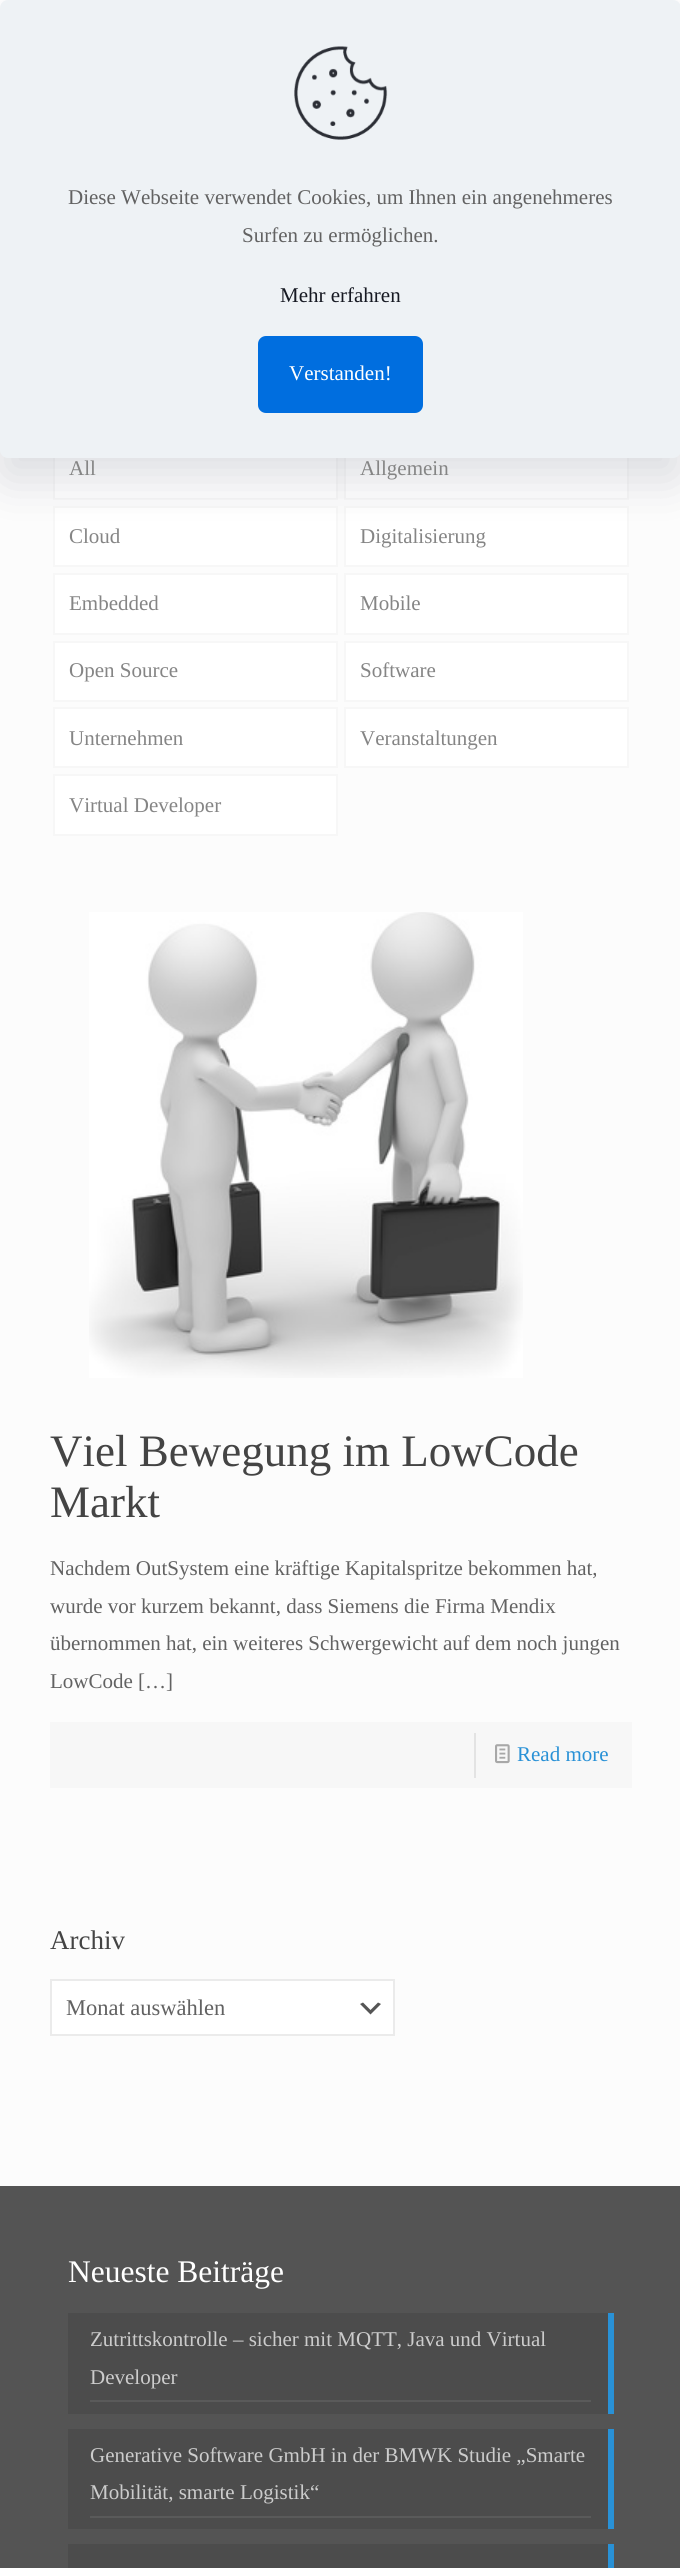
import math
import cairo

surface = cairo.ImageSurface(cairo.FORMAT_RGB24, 680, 2568)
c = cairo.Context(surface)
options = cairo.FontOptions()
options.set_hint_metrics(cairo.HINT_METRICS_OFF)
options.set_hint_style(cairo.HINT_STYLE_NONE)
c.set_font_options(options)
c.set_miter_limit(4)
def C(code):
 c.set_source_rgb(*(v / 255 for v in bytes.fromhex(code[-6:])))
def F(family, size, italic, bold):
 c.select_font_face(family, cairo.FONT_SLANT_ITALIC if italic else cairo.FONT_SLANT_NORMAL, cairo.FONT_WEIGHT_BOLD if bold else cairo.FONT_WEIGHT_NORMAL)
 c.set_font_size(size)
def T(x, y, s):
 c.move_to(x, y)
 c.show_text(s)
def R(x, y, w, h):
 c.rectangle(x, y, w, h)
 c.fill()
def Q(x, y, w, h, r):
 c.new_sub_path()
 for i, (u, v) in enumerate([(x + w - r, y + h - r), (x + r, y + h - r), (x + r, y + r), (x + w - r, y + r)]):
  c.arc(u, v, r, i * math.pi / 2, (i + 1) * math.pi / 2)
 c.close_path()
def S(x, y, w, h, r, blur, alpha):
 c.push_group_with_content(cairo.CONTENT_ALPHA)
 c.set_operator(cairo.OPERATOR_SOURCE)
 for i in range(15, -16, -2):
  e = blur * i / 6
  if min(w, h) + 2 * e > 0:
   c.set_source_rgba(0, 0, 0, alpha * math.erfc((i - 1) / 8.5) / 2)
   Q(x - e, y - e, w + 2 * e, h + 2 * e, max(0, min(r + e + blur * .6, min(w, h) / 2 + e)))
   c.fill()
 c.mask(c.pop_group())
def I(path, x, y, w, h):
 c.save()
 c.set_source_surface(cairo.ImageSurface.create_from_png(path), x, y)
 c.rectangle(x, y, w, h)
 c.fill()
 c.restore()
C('fcfcfc')
c.paint()
C('ffffff')
R(0,0,680,8)
R(55,458,281,40)
c.rectangle(54,439,283,60)
C('f7f7f7')
c.stroke()
C('ffffff')
R(346,458,281,40)
c.rectangle(345,439,283,60)
C('f7f7f7')
c.stroke()
C('ffffff')
c.rectangle(54,507,283,59)
c.fill_preserve()
C('f7f7f7')
c.stroke()
C('ffffff')
c.rectangle(345,507,283,59)
c.fill_preserve()
C('f7f7f7')
c.stroke()
C('010727')
S(0,23,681,457,8,22.5,.13)
C('eef2f5')
Q(0,0,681,458,8)
c.fill()
I('1.png',294,46,94,94)
F('Liberation Serif',21,0,0)
C('626262')
T(68,204,'Diese Webseite verwendet Cookies, um Ihnen ein angenehmeres')
T(242,242,'Surfen zu ermöglichen.')
C('161922')
T(280,302,'Mehr erfahren')
C('006edf')
Q(258,336,165,77,8)
c.fill()
C('ffffff')
T(289,380,'Verstanden!')
C('858585')
T(69,475,'All')
T(360,475,'Allgemein')
T(69,543,'Cloud')
T(360,543,'Digitalisierung')
C('ffffff')
c.rectangle(54,574,283,60)
c.fill_preserve()
C('f7f7f7')
c.stroke()
C('858585')
T(69,610,'Embedded')
C('ffffff')
c.rectangle(345,574,283,60)
c.fill_preserve()
C('f7f7f7')
c.stroke()
C('858585')
T(360,610,'Mobile')
C('ffffff')
c.rectangle(54,642,283,59)
c.fill_preserve()
C('f7f7f7')
c.stroke()
C('858585')
T(69,677,'Open Source')
C('ffffff')
c.rectangle(345,642,283,59)
c.fill_preserve()
C('f7f7f7')
c.stroke()
C('858585')
T(360,677,'Software')
C('ffffff')
c.rectangle(54,708,283,59)
c.fill_preserve()
C('f7f7f7')
c.stroke()
C('858585')
T(69,745,'Unternehmen')
C('ffffff')
c.rectangle(345,708,283,59)
c.fill_preserve()
C('f7f7f7')
c.stroke()
C('858585')
T(360,745,'Veranstaltungen')
C('ffffff')
c.rectangle(54,775,283,60)
c.fill_preserve()
C('f7f7f7')
c.stroke()
C('858585')
T(69,812,'Virtual Developer')
I('2.png',89,912,434,466)
F('Liberation Serif',45,0,0)
C('444444')
T(50,1466,'Viel Bewegung im LowCode')
T(50,1517,'Markt')
F('Liberation Serif',21,0,0)
C('626262')
T(50,1575,'Nachdem OutSystem eine kräftige Kapitalspritze bekommen hat,')
T(50,1613,'wurde vor kurzem bekannt, dass Siemens die Firma Mendix')
T(50,1650,'übernommen hat, ein weiteres Schwergewicht auf dem noch jungen')
T(50,1688,'LowCode […]')
C('f7f7f7')
R(50,1722,582,66)
C('e3e3e3')
R(474,1733,2,45)
I('3.png',495,1744,15,20)
C('2991d6')
T(517,1761,'Read more')
F('Liberation Serif',27,0,0)
C('444444')
T(50,1949,'Archiv')
C('ffffff')
R(52,1981,341,53)
C('555555')
c.new_path()
c.move_to(363,2002.5)
c.line_to(370.5,2010)
c.line_to(378,2002.5)
c.line_to(381,2004)
c.line_to(370.5,2014.5)
c.line_to(360,2004)
c.close_path()
c.fill()
c.rectangle(51,1980,343,55)
C('ebebeb')
c.stroke()
F('Liberation Serif',22.5,0,0)
C('626262')
T(66,2015,'Monat auswählen')
C('545454')
R(0,2186,680,382)
F('Liberation Serif',31.5,0,0)
C('ffffff')
T(68,2282,'Neueste Beiträge')
C('4c4c4c')
R(68,2313,540,101)
C('5a5a5a')
R(90,2400,501,2)
F('Liberation Serif',21,0,0)
C('cccccc')
T(90,2346,'Zutrittskontrolle – sicher mit MQTT, Java und Virtual')
T(90,2384,'Developer')
C('2991d6')
R(608,2313,6,101)
C('4c4c4c')
R(68,2429,540,100)
C('5a5a5a')
R(90,2516,501,2)
C('cccccc')
T(90,2462,'Generative Software GmbH in der BMWK Studie „Smarte')
T(90,2499,'Mobilität, smarte Logistik“')
C('2991d6')
R(608,2429,6,100)
C('4c4c4c')
R(68,2544,540,24)
C('2991d6')
R(608,2544,6,24)
surface.write_to_png('o.png')
